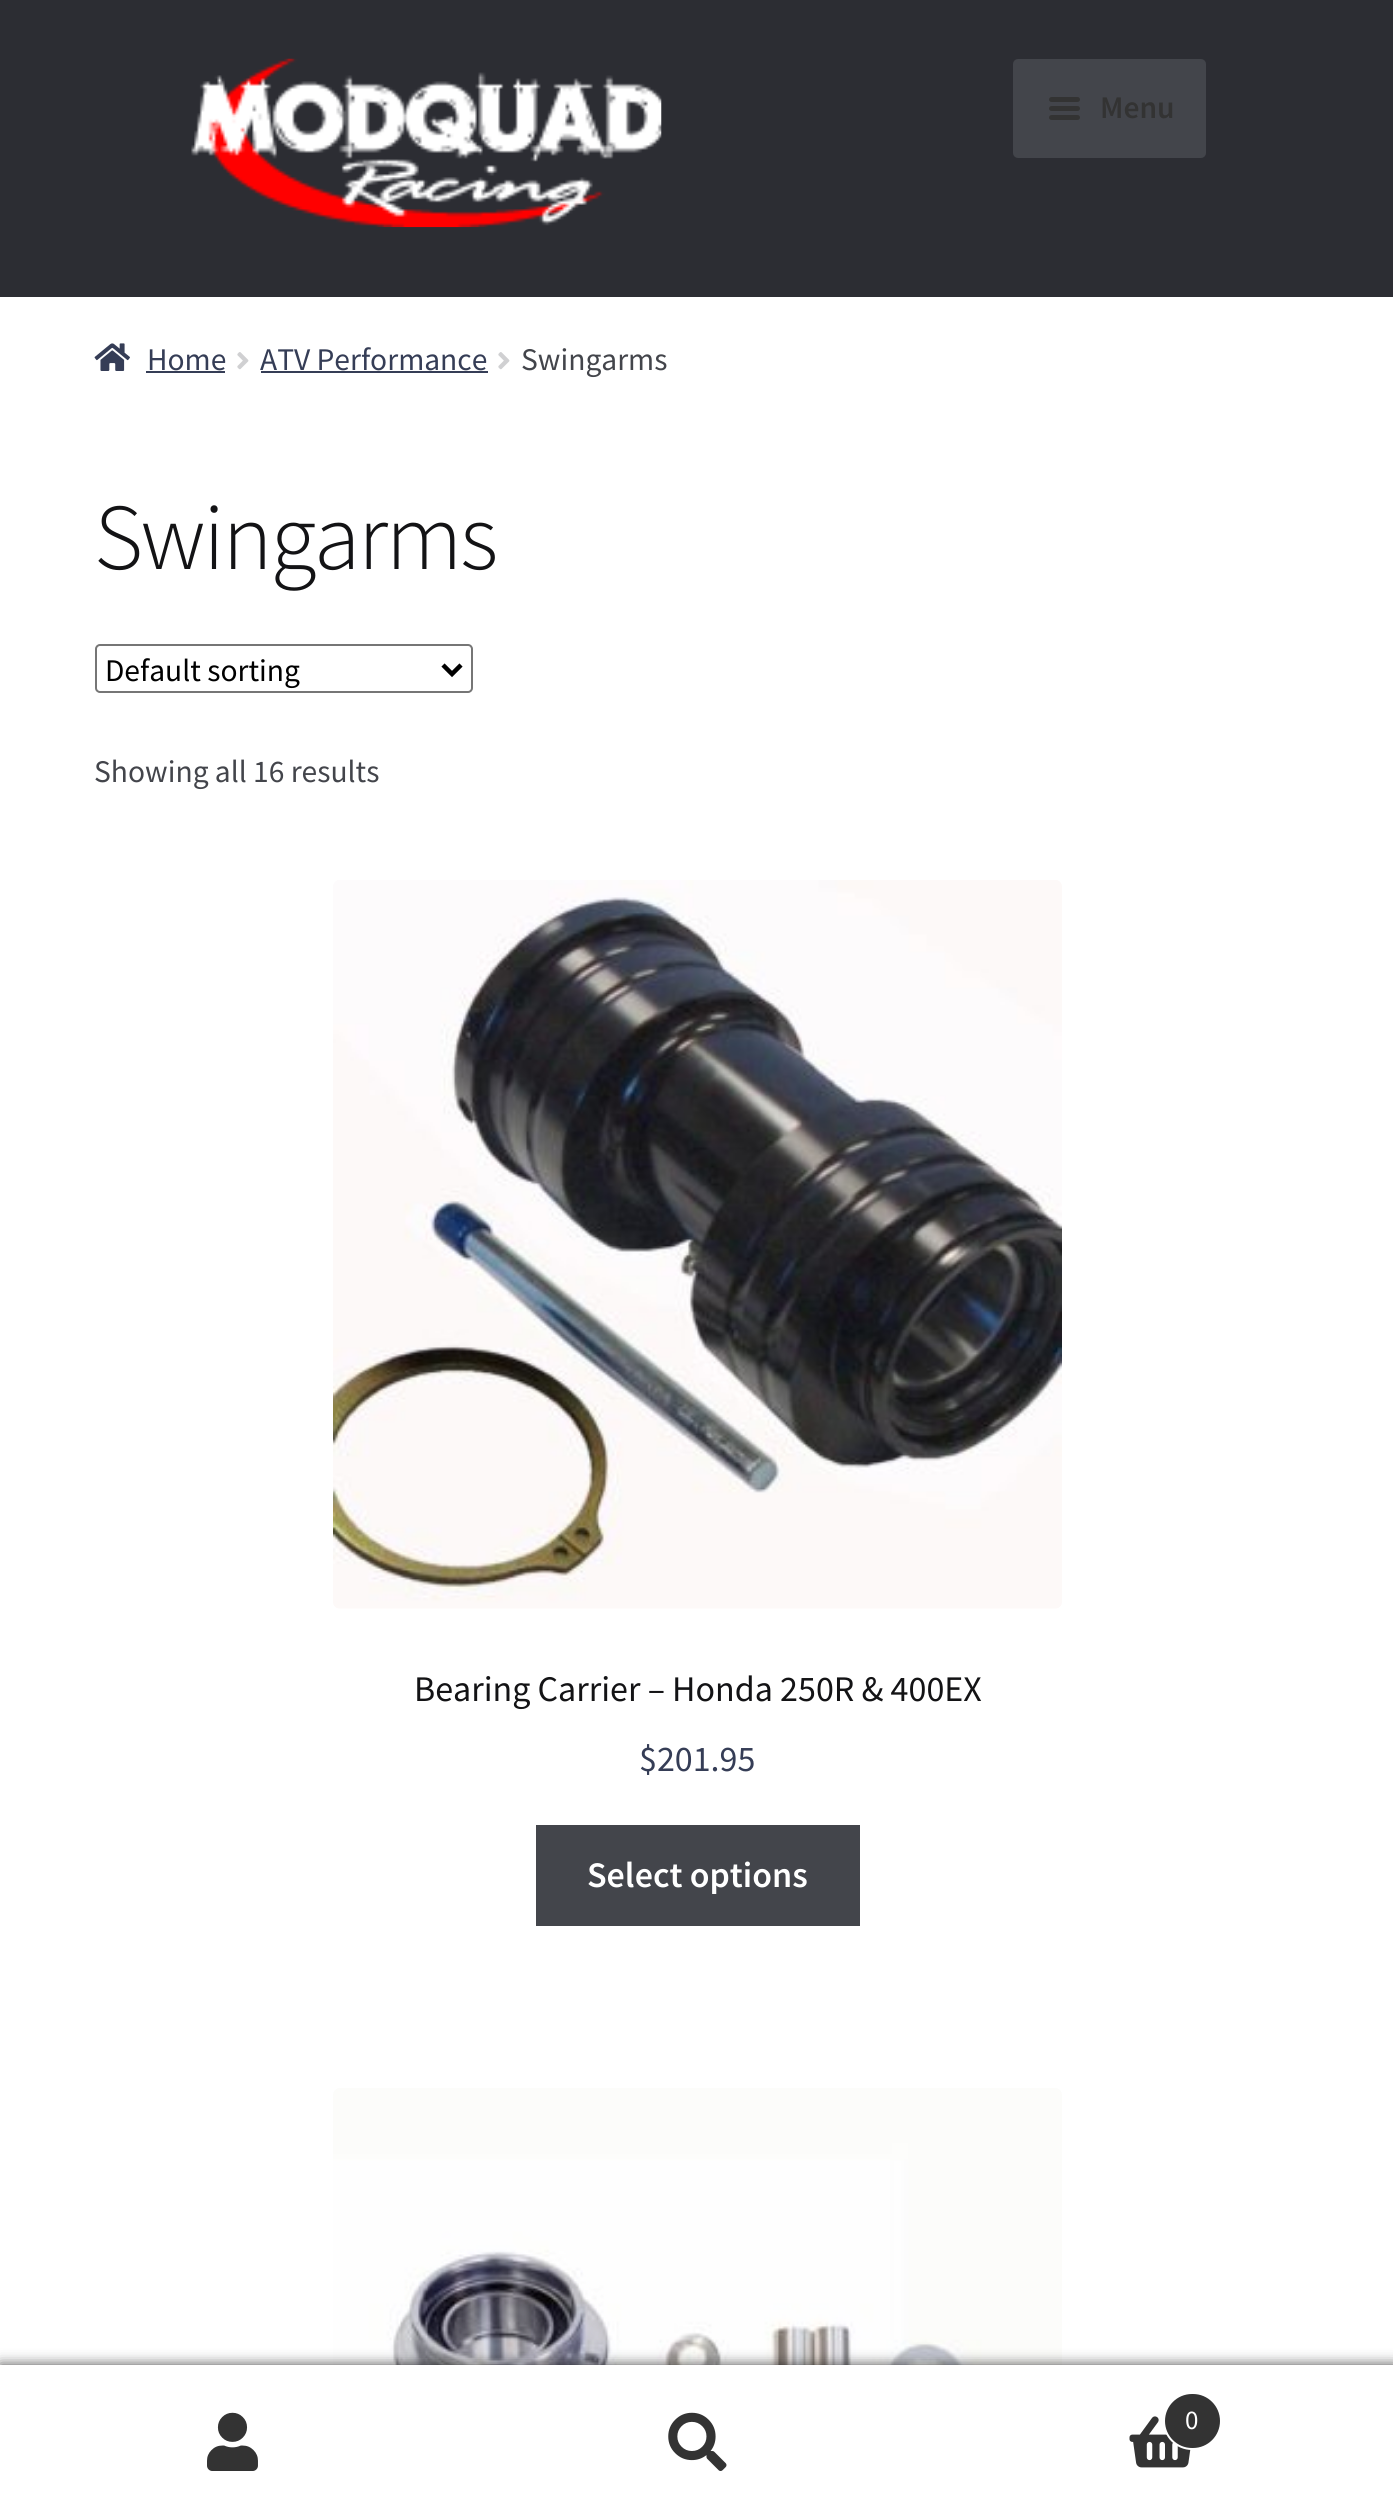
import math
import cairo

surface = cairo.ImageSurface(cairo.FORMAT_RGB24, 1393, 2519)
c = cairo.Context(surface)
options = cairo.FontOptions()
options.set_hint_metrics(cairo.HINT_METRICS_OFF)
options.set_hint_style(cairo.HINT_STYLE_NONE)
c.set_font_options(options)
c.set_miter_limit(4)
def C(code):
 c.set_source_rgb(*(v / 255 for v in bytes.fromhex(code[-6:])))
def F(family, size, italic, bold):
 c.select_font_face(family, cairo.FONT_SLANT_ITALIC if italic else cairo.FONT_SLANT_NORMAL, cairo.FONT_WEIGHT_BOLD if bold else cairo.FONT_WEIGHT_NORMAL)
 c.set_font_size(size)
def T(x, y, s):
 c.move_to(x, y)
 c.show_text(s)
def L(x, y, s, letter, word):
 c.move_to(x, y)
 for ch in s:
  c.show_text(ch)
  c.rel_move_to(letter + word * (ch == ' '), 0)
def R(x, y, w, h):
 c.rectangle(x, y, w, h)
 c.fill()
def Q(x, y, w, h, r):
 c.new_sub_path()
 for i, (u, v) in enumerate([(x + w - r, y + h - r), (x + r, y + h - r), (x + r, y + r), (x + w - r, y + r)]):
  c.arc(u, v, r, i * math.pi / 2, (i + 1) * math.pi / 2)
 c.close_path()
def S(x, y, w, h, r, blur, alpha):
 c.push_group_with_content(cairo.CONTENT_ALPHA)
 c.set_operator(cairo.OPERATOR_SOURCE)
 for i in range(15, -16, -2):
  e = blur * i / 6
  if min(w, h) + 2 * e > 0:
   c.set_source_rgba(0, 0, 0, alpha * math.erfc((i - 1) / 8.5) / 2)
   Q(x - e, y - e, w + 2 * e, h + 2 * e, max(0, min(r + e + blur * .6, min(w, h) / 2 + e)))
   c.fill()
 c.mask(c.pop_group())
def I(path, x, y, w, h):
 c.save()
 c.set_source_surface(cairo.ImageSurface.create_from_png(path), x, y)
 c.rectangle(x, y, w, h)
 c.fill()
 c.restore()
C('ffffff')
c.paint()
C('2c2d33')
R(0,0,1393,297)
I('1.png',191,58,471,170)
C('43454b')
Q(1015.5,61.5,188,94,2.5)
c.fill_preserve()
c.set_line_width(5)
c.stroke()
C('333333')
Q(1049,97,31,5,2.5)
c.fill()
Q(1049,106,31,5,2.5)
c.fill()
F('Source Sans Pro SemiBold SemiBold',31.5,0,0)
T(1100,118,'Menu')
Q(1049,115,31,5,2.5)
c.fill()
I('2.png',94,343,36,28)
F('Source Sans Pro',31.5,0,0)
C('353d56')
T(147,370,'Home')
R(146,371,79,2)
I('3.png',237,352,12,18)
T(260,370,'ATV Performance')
R(261,371,227,2)
I('3.png',498,352,12,18)
C('43454b')
T(521,370,'Swingarms')
F('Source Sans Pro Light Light',94.25,0,0)
C('131315')
L(94,569,'Swingarms',-2.25,0)
Q(96,645,376,47,4)
C('767676')
c.set_line_width(2)
c.stroke()
c.new_path()
c.move_to(443,665)
c.line_to(452,674)
c.line_to(461,665)
C('000000')
c.set_line_width(4.5)
c.stroke()
F('Source Sans Pro',31.5,0,0)
T(105,681,'Default sorting')
C('43454b')
T(94,782,'Showing all 16 results')
I('4.png',333,880,729,729)
F('Source Sans Pro',36,0,0)
C('131315')
T(414,1701,'Bearing Carrier – Honda 250R & 400EX')
C('353d56')
T(639,1771,'$201.95')
C('43454b')
R(536,1825,324,101)
F('Source Sans Pro SemiBold SemiBold',36,0,0)
C('ffffff')
T(587,1887,'Select options')
I('5.png',333,2088,729,277)
C('000000')
S(0,2365,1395,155,0,7,.7)
C('ffffff')
R(0,2365,1393,2)
R(0,2367,1393,152)
I('6.png',207,2412,51,59)
I('7.png',668,2412,59,59)
I('8.png',1129,2416,62,52)
C('333333')
Q(1164,2393,57,56,28)
c.fill_preserve()
C('ffffff')
c.set_line_width(2)
c.stroke()
F('Source Sans Pro',27,0,0)
T(1185,2429,'0')
surface.write_to_png('o.png')
